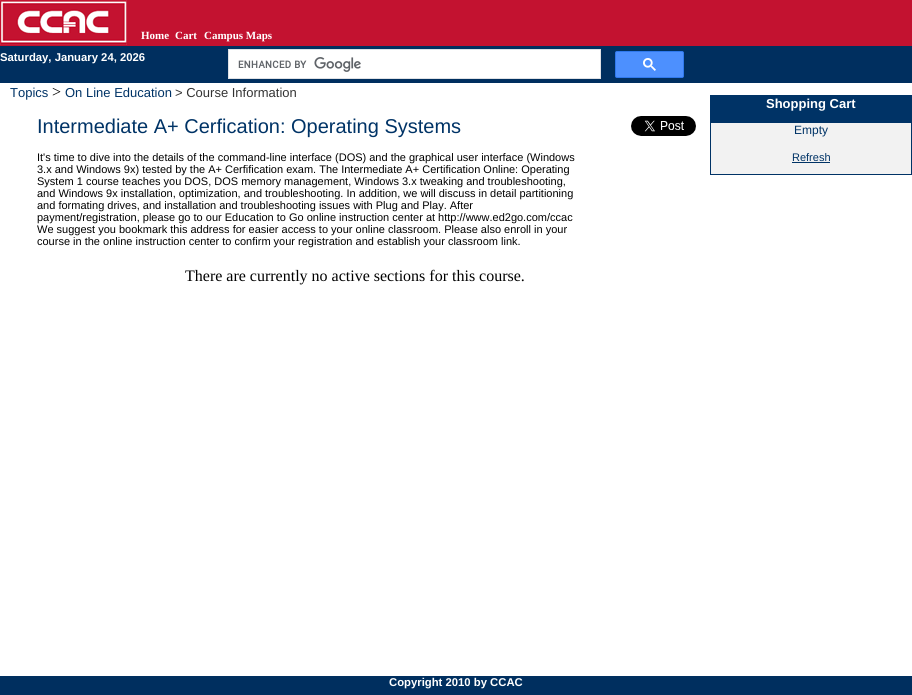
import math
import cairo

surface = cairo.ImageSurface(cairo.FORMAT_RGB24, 912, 695)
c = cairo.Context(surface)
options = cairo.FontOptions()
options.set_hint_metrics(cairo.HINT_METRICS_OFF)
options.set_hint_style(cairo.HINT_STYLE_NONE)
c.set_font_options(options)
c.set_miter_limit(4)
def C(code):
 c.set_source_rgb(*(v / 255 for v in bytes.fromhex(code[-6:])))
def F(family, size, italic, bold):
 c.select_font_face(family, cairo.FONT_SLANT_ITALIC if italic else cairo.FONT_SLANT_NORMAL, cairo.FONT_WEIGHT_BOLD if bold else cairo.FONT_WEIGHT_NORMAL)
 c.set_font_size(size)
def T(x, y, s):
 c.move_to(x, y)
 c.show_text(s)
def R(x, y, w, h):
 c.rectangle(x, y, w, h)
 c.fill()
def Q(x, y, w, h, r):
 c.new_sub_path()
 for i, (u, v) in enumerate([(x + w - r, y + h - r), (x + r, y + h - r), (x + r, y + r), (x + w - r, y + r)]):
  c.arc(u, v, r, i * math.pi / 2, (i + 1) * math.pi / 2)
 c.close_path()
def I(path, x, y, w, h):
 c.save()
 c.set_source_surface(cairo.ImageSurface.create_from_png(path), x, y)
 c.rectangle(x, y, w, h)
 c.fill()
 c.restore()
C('ffffff')
c.paint()
C('c31230')
R(0,0,912,46)
I('1.png',0,0,127,45)
F('Liberation Serif',11,0,1)
C('ffffff')
T(141,39,'Home')
T(175,39,'Cart')
T(204,39,'Campus Maps')
C('002f5f')
R(0,46,912,37)
F('Liberation Sans',11.3,0,1)
C('ffffff')
T(0,61,'Saturday, January 24, 2026')
c.rectangle(228.5,49.5,372,29)
c.fill_preserve()
C('dfe1e5')
c.set_line_width(1)
c.stroke()
I('2.png',238,57,123,15)
C('4d90fe')
Q(615.5,51.5,68,26,1.5)
c.fill_preserve()
C('3079ed')
c.stroke()
I('3.png',643,58,13,13)
F('Liberation Sans',13,0,0)
C('003366')
T(10,97,'Topics')
F('Liberation Serif',16,0,0)
C('000000')
T(52,97,'>')
F('Liberation Sans',13,0,0)
C('003366')
T(65,97,'On Line Education')
C('333333')
T(175,97,'> Course Information')
F('Liberation Sans',20,0,0)
C('003366')
T(37,133,'Intermediate A+ Cerfication: Operating Systems')
F('Liberation Sans',11,0,0)
C('000000')
T(37,161,'It\'s time to dive into the details of the command-line interface (DOS) and the graphical user interface (Windows')
T(37,173,'3.x and Windows 9x) tested by the A+ Cerfification exam. The Intermediate A+ Certification Online: Operating')
T(37,185,'System 1 course teaches you DOS, DOS memory management, Windows 3.x tweaking and troubleshooting,')
T(37,197,'and Windows 9x installation, optimization, and troubleshooting. In addition, we will discuss in detail partitioning')
T(37,209,'and formating drives, and installation and troubleshooting issues with Plug and Play. After')
T(37,221,'payment/registration, please go to our Education to Go online instruction center at http://www.ed2go.com/ccac')
T(37,233,'We suggest you bookmark this address for easier access to your online classroom. Please also enroll in your')
T(37,245,'course in the online instruction center to confirm your registration and establish your classroom link.')
I('4.png',631,116,65,20)
F('Liberation Serif',16,0,0)
T(185,281,'There are currently no active sections for this course.')
C('003366')
R(710,95,202,27)
F('Liberation Sans',13,0,1)
C('ffffff')
T(766,108,'Shopping Cart')
C('f2f2f2')
c.rectangle(710.5,122.5,201,52)
c.fill_preserve()
C('003366')
c.stroke()
F('Liberation Sans',12,0,0)
T(794,134,'Empty')
F('Liberation Sans',11,0,0)
T(792,161,'Refresh')
R(792,162,38,1)
C('002f5f')
R(0,676,912,19)
F('Liberation Sans',11.3,0,1)
C('ffffff')
T(389,686,'Copyright 2010 by CCAC')
surface.write_to_png('o.png')
